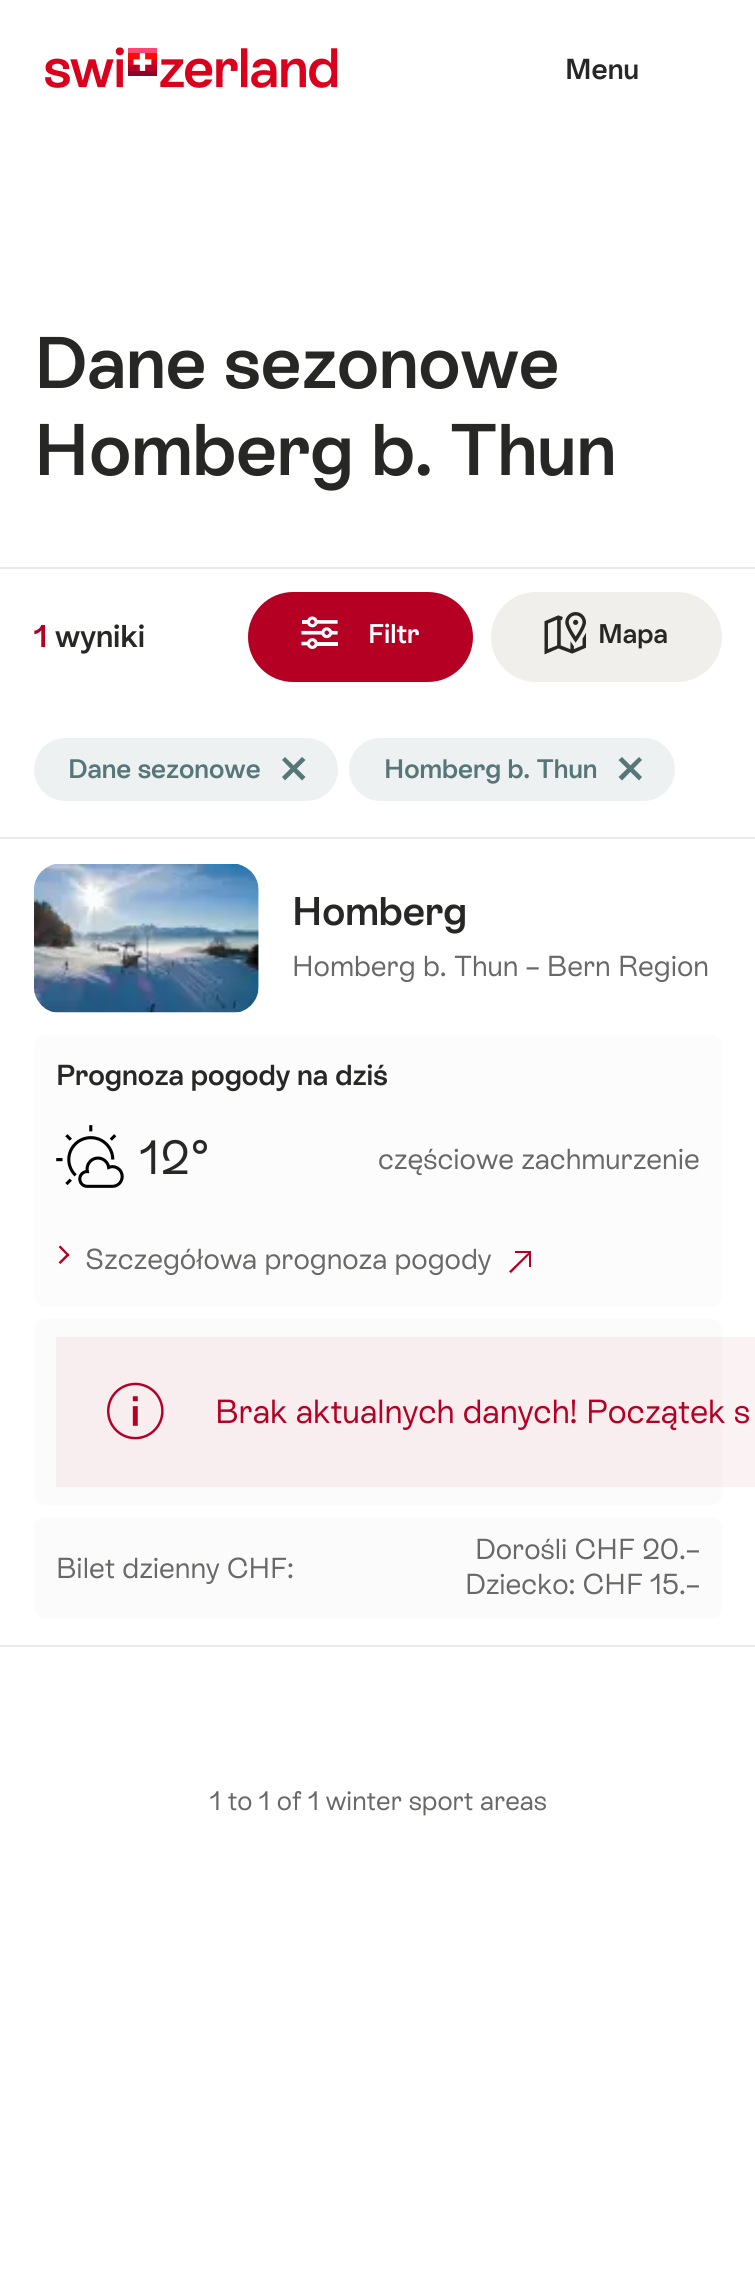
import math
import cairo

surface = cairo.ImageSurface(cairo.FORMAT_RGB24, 755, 2275)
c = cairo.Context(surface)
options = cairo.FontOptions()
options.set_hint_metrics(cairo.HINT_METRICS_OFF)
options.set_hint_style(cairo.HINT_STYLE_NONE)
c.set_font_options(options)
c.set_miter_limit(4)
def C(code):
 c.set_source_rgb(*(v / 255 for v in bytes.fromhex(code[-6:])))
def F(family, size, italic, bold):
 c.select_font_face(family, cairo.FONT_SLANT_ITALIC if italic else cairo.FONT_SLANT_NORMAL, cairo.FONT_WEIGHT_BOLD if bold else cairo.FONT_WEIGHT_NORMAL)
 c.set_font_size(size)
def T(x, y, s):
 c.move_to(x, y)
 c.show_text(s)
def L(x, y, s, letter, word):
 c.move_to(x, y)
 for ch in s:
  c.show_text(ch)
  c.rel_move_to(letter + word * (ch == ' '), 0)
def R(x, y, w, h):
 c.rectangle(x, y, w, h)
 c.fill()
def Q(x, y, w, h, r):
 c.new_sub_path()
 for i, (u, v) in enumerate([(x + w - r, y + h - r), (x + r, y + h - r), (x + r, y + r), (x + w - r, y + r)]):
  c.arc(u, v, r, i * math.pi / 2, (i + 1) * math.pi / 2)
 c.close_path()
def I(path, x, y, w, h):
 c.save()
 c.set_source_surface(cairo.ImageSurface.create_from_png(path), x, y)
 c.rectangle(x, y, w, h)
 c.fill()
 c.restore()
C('ffffff')
c.paint()
C('fbf2f4')
R(722,1337,33,150)
I('1.png',45,47,293,41)
F('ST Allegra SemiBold',28.9,0,0)
C('272726')
T(565,79,'Menu')
C('e9e9e9')
R(0,567,755,2)
F('ST Allegra SemiBold',73,0,0)
C('272726')
T(34,388,'Dane sezonowe')
T(34,475,'Homberg b. Thun')
F('ST Allegra SemiBold',31.5,0,0)
C('b50024')
T(34,647,'1')
C('272726')
T(55,647,'wyniki')
C('b50024')
Q(248,592,225,90,45)
c.fill()
I('2.png',301,616,37,33)
F('ST Allegra SemiBold',27,0,0)
C('ffffff')
T(368,643,'Filtr')
C('f0efeb')
Q(491,592,231,90,45)
c.fill()
I('3.png',544,612,42,43)
C('272726')
T(598,643,'Mapa')
C('eef1f2')
Q(34,738,304,63,31.5)
c.fill()
F('ST Allegra SemiBold',26.75,0,0)
C('577678')
T(68,778,'Dane sezonowe')
c.new_path()
c.move_to(285,757)
c.line_to(305.5,777)
c.line_to(302,780.5)
c.line_to(282,760)
c.close_path()
c.fill()
c.new_path()
c.move_to(282,777)
c.line_to(302,757)
c.line_to(305.5,760)
c.line_to(285,780.5)
c.close_path()
c.fill()
C('eef1f2')
Q(349,738,326,63,31.5)
c.fill()
C('577678')
T(384,778,'Homberg b. Thun')
c.new_path()
c.move_to(622,757)
c.line_to(642,777)
c.line_to(639,780.5)
c.line_to(618.5,760)
c.close_path()
c.fill()
c.new_path()
c.move_to(618.5,777)
c.line_to(639,757)
c.line_to(642,760)
c.line_to(622,780.5)
c.close_path()
c.fill()
C('e9e9e9')
R(0,837,755,2)
R(0,1645,755,2)
I('4.png',34,864,225,149)
F('ST Allegra SemiBold',40,0,0)
C('272726')
T(292,925,'Homberg')
F('ST Allegra',28.9,0,0)
C('686867')
T(292,976,'Homberg b. Thun – Bern Region')
C('fcfcfc')
Q(34,1035,688,272,11)
c.fill()
F('ST Allegra SemiBold',28.9,0,0)
C('272726')
T(56,1085,'Prognoza pogody na dziś')
I('5.png',56,1125,68,63)
F('ST Allegra',48,0,0)
L(140,1174,'12°',1,0)
F('ST Allegra',28.9,0,0)
C('686867')
T(378,1169,'częściowe zachmurzenie')
C('b50024')
c.new_path()
c.move_to(69.5,1255)
c.line_to(60.5,1264)
c.line_to(58.5,1262.5)
c.line_to(68,1253)
c.close_path()
c.fill()
c.new_path()
c.move_to(69.5,1255)
c.line_to(68,1256.5)
c.line_to(58.5,1247)
c.line_to(60.5,1245.5)
c.close_path()
c.fill()
C('686867')
T(85,1269,'Szczegółowa prognoza pogody')
C('b50024')
c.new_path()
c.move_to(528.5,1252.5)
c.line_to(530,1254)
c.line_to(511,1273)
c.line_to(509,1271.5)
c.close_path()
c.fill()
R(515,1251,16,2)
R(529,1251,2,16)
C('fbfbfb')
Q(34,1319,688,186,11)
c.fill()
C('f8eef0')
R(56,1337,666,150)
I('6.png',107,1382,57,58)
F('ST Allegra',33.4,0,0)
C('b50024')
T(215,1423,'Brak aktualnych danych! Początek s')
C('fbfbfb')
Q(34,1517,688,101,11)
c.fill()
F('ST Allegra',28.9,0,0)
C('686867')
T(475,1559,'Dorośli CHF 20.–')
T(56,1578,'Bilet dzienny CHF:')
T(465,1594,'Dziecko: CHF 15.–')
F('ST Allegra',26.75,0,0)
T(210,1810,'1 to 1 of 1 winter sport areas')
surface.write_to_png('o.png')
